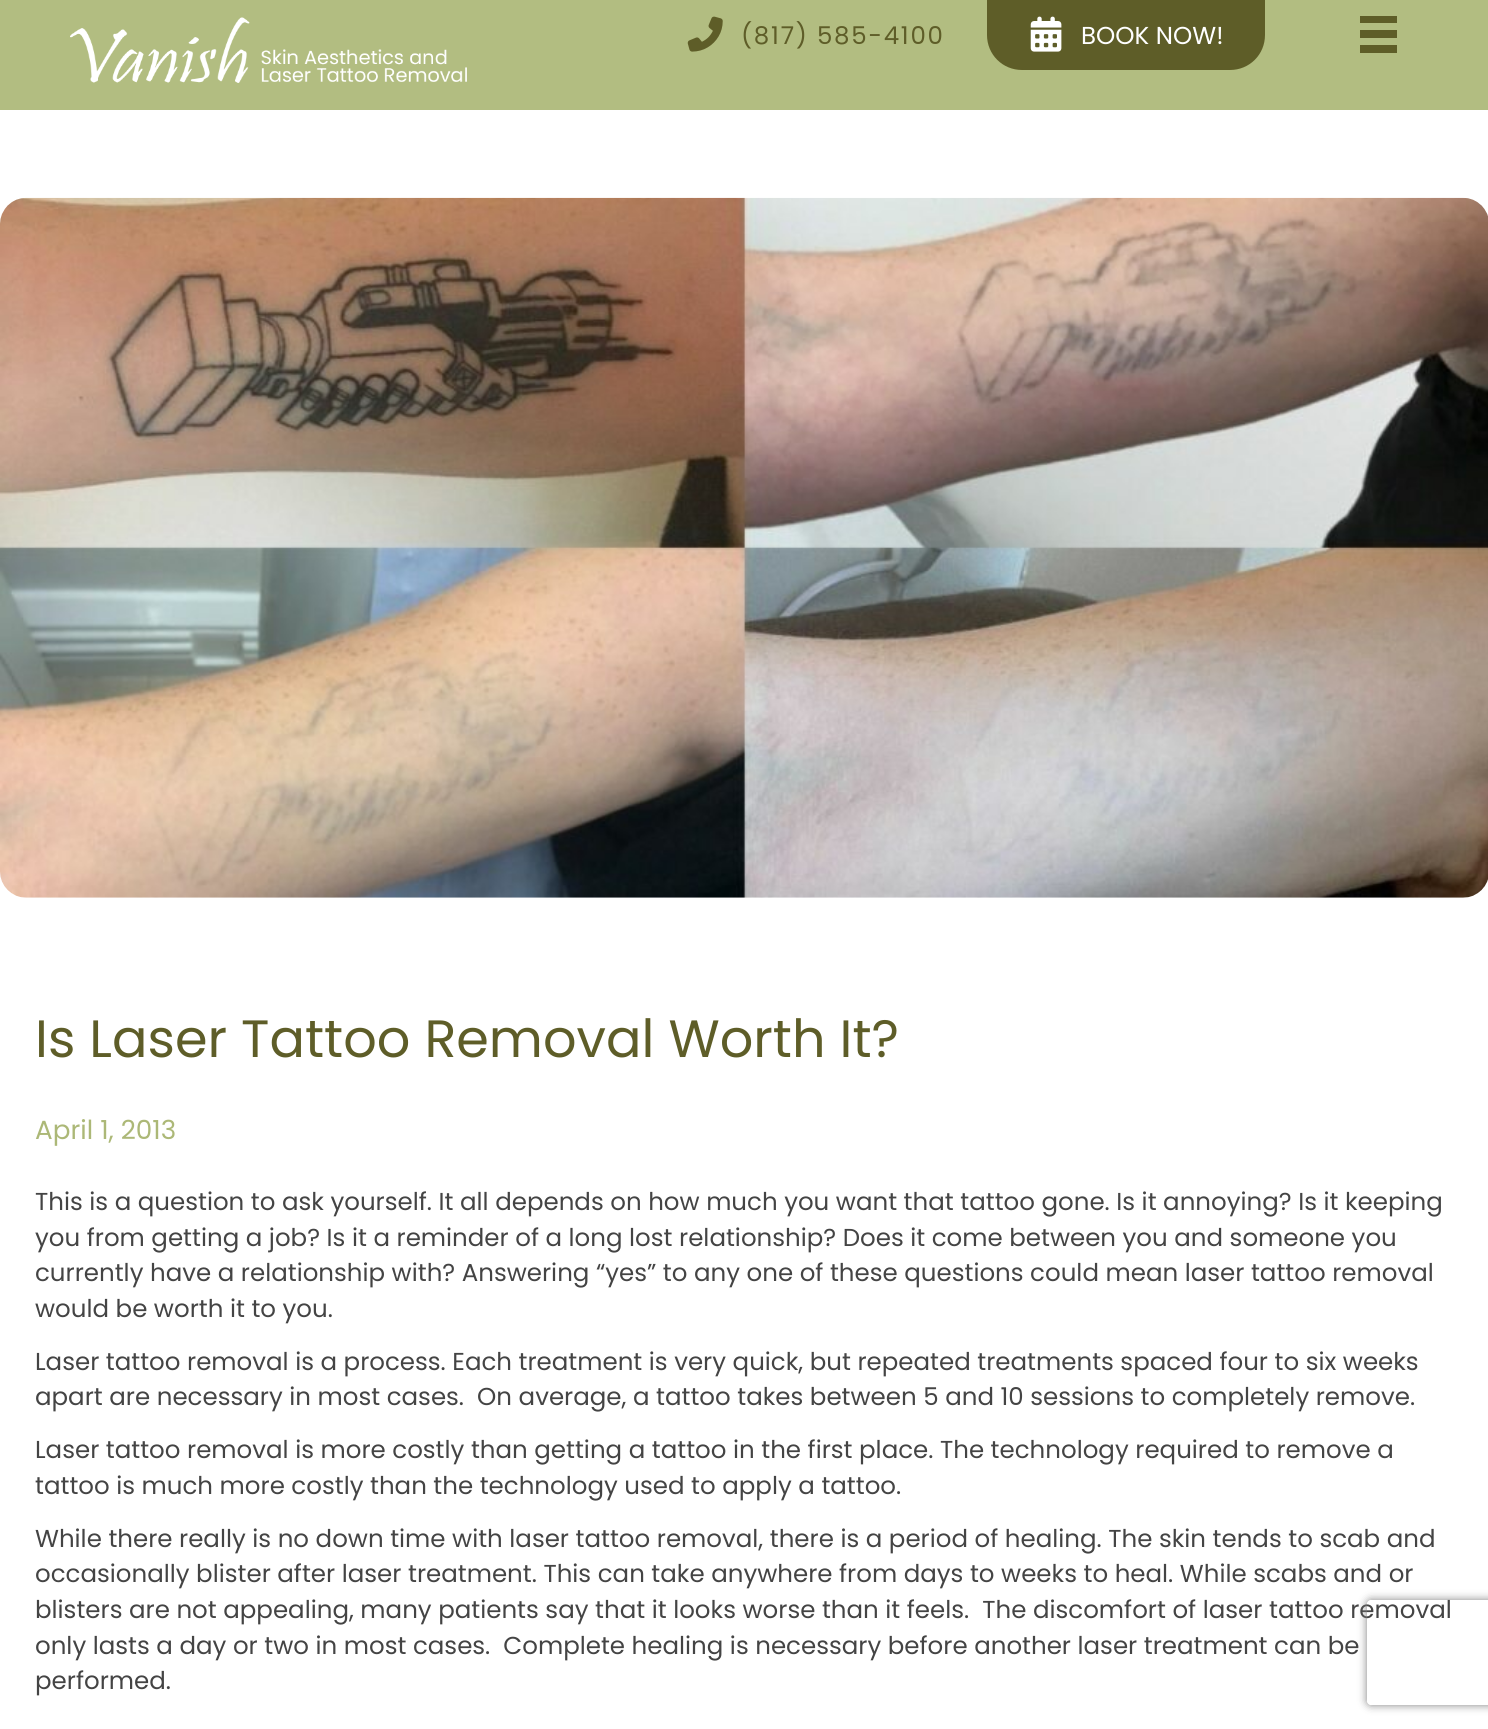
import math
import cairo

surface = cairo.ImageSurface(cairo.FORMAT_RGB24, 1488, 1729)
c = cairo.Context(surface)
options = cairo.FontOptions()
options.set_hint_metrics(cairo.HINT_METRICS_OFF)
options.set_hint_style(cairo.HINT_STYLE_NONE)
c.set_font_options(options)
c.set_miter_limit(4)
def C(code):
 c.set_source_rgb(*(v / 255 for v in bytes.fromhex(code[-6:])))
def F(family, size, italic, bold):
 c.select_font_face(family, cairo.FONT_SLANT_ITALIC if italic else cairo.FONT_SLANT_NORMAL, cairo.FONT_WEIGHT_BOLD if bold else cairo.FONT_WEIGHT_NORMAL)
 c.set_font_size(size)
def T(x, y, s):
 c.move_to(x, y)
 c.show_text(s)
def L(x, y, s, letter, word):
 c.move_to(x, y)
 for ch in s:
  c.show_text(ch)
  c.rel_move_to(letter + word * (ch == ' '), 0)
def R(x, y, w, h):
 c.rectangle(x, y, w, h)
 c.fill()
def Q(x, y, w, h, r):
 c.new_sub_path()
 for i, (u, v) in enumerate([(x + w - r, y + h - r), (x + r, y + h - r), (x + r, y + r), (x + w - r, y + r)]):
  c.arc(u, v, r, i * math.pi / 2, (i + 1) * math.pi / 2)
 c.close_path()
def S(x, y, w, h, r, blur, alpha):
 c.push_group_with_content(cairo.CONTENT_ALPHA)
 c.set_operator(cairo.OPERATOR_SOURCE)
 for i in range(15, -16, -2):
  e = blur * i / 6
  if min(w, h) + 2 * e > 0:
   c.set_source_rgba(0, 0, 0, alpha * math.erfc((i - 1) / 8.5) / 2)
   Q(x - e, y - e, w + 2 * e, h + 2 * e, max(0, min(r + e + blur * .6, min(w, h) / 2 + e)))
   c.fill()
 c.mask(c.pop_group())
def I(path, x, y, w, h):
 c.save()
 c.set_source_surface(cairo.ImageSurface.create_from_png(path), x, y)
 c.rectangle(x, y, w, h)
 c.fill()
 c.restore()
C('ffffff')
c.paint()
C('b2bd81')
R(0,0,1488,110)
I('1.png',70,17,397,66)
I('2.png',687,16,36,36)
F('Poppins',24.5,0,0)
C('5e5d28')
L(741,44,'(817) 585-4100',1.75,0)
c.new_path()
c.move_to(987,0)
c.line_to(1265,0)
c.line_to(1265,35)
c.curve_to(1265,54.5,1249.5,70,1230,70)
c.line_to(1022,70)
c.curve_to(1002.5,70,987,54.5,987,35)
c.close_path()
c.fill()
I('3.png',1030,16,32,36)
C('ffffff')
T(1081,44,'BOOK NOW!')
C('5e5d28')
R(1360,16,37,7)
R(1360,30,37,8)
R(1360,45,37,8)
I('4.png',0,197,1488,701)
F('Poppins',52.5,0,0)
T(35,1057,'Is Laser Tattoo Removal Worth It?')
F('Poppins',26.25,0,0)
C('acb877')
T(35,1139,'April 1, 2013')
F('Poppins',24.5,0,0)
C('444444')
T(35,1210,'This is a question to ask yourself. It all depends on how much you want that tattoo gone. Is it annoying? Is it keeping')
T(35,1246,'you from getting a job? Is it a reminder of a long lost relationship? Does it come between you and someone you')
T(35,1281,'currently have a relationship with? Answering “yes” to any one of these questions could mean laser tattoo removal')
T(35,1317,'would be worth it to you.')
T(35,1370,'Laser tattoo removal is a process. Each treatment is very quick, but repeated treatments spaced four to six weeks')
T(35,1405,'apart are necessary in most cases.  On average, a tattoo takes between 5 and 10 sessions to completely remove.')
T(35,1458,'Laser tattoo removal is more costly than getting a tattoo in the first place. The technology required to remove a')
T(35,1494,'tattoo is much more costly than the technology used to apply a tattoo.')
T(35,1547,'While there really is no down time with laser tattoo removal, there is a period of healing. The skin tends to scab and')
T(35,1582,'occasionally blister after laser treatment. This can take anywhere from days to weeks to heal. While scabs and or')
T(35,1618,'blisters are not appealing, many patients say that it looks worse than it feels.  The discomfort of laser tattoo removal')
T(35,1654,'only lasts a day or two in most cases.  Complete healing is necessary before another laser treatment can be')
T(35,1689,'performed.')
c.save()
c.set_fill_rule(cairo.FILL_RULE_EVEN_ODD)
c.new_path()
c.move_to(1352,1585)
c.line_to(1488,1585)
c.line_to(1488,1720)
c.line_to(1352,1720)
c.close_path()
c.move_to(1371,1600)
c.line_to(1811,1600)
c.curve_to(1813,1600,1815,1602,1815,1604)
c.line_to(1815,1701)
c.curve_to(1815,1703,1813,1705,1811,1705)
c.line_to(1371,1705)
c.curve_to(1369,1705,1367,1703,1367,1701)
c.line_to(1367,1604)
c.curve_to(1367,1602,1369,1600,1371,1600)
c.close_path()
c.clip()
C('808080')
S(1367,1600,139,105,4,4.5,1)
c.restore()
surface.write_to_png('o.png')
